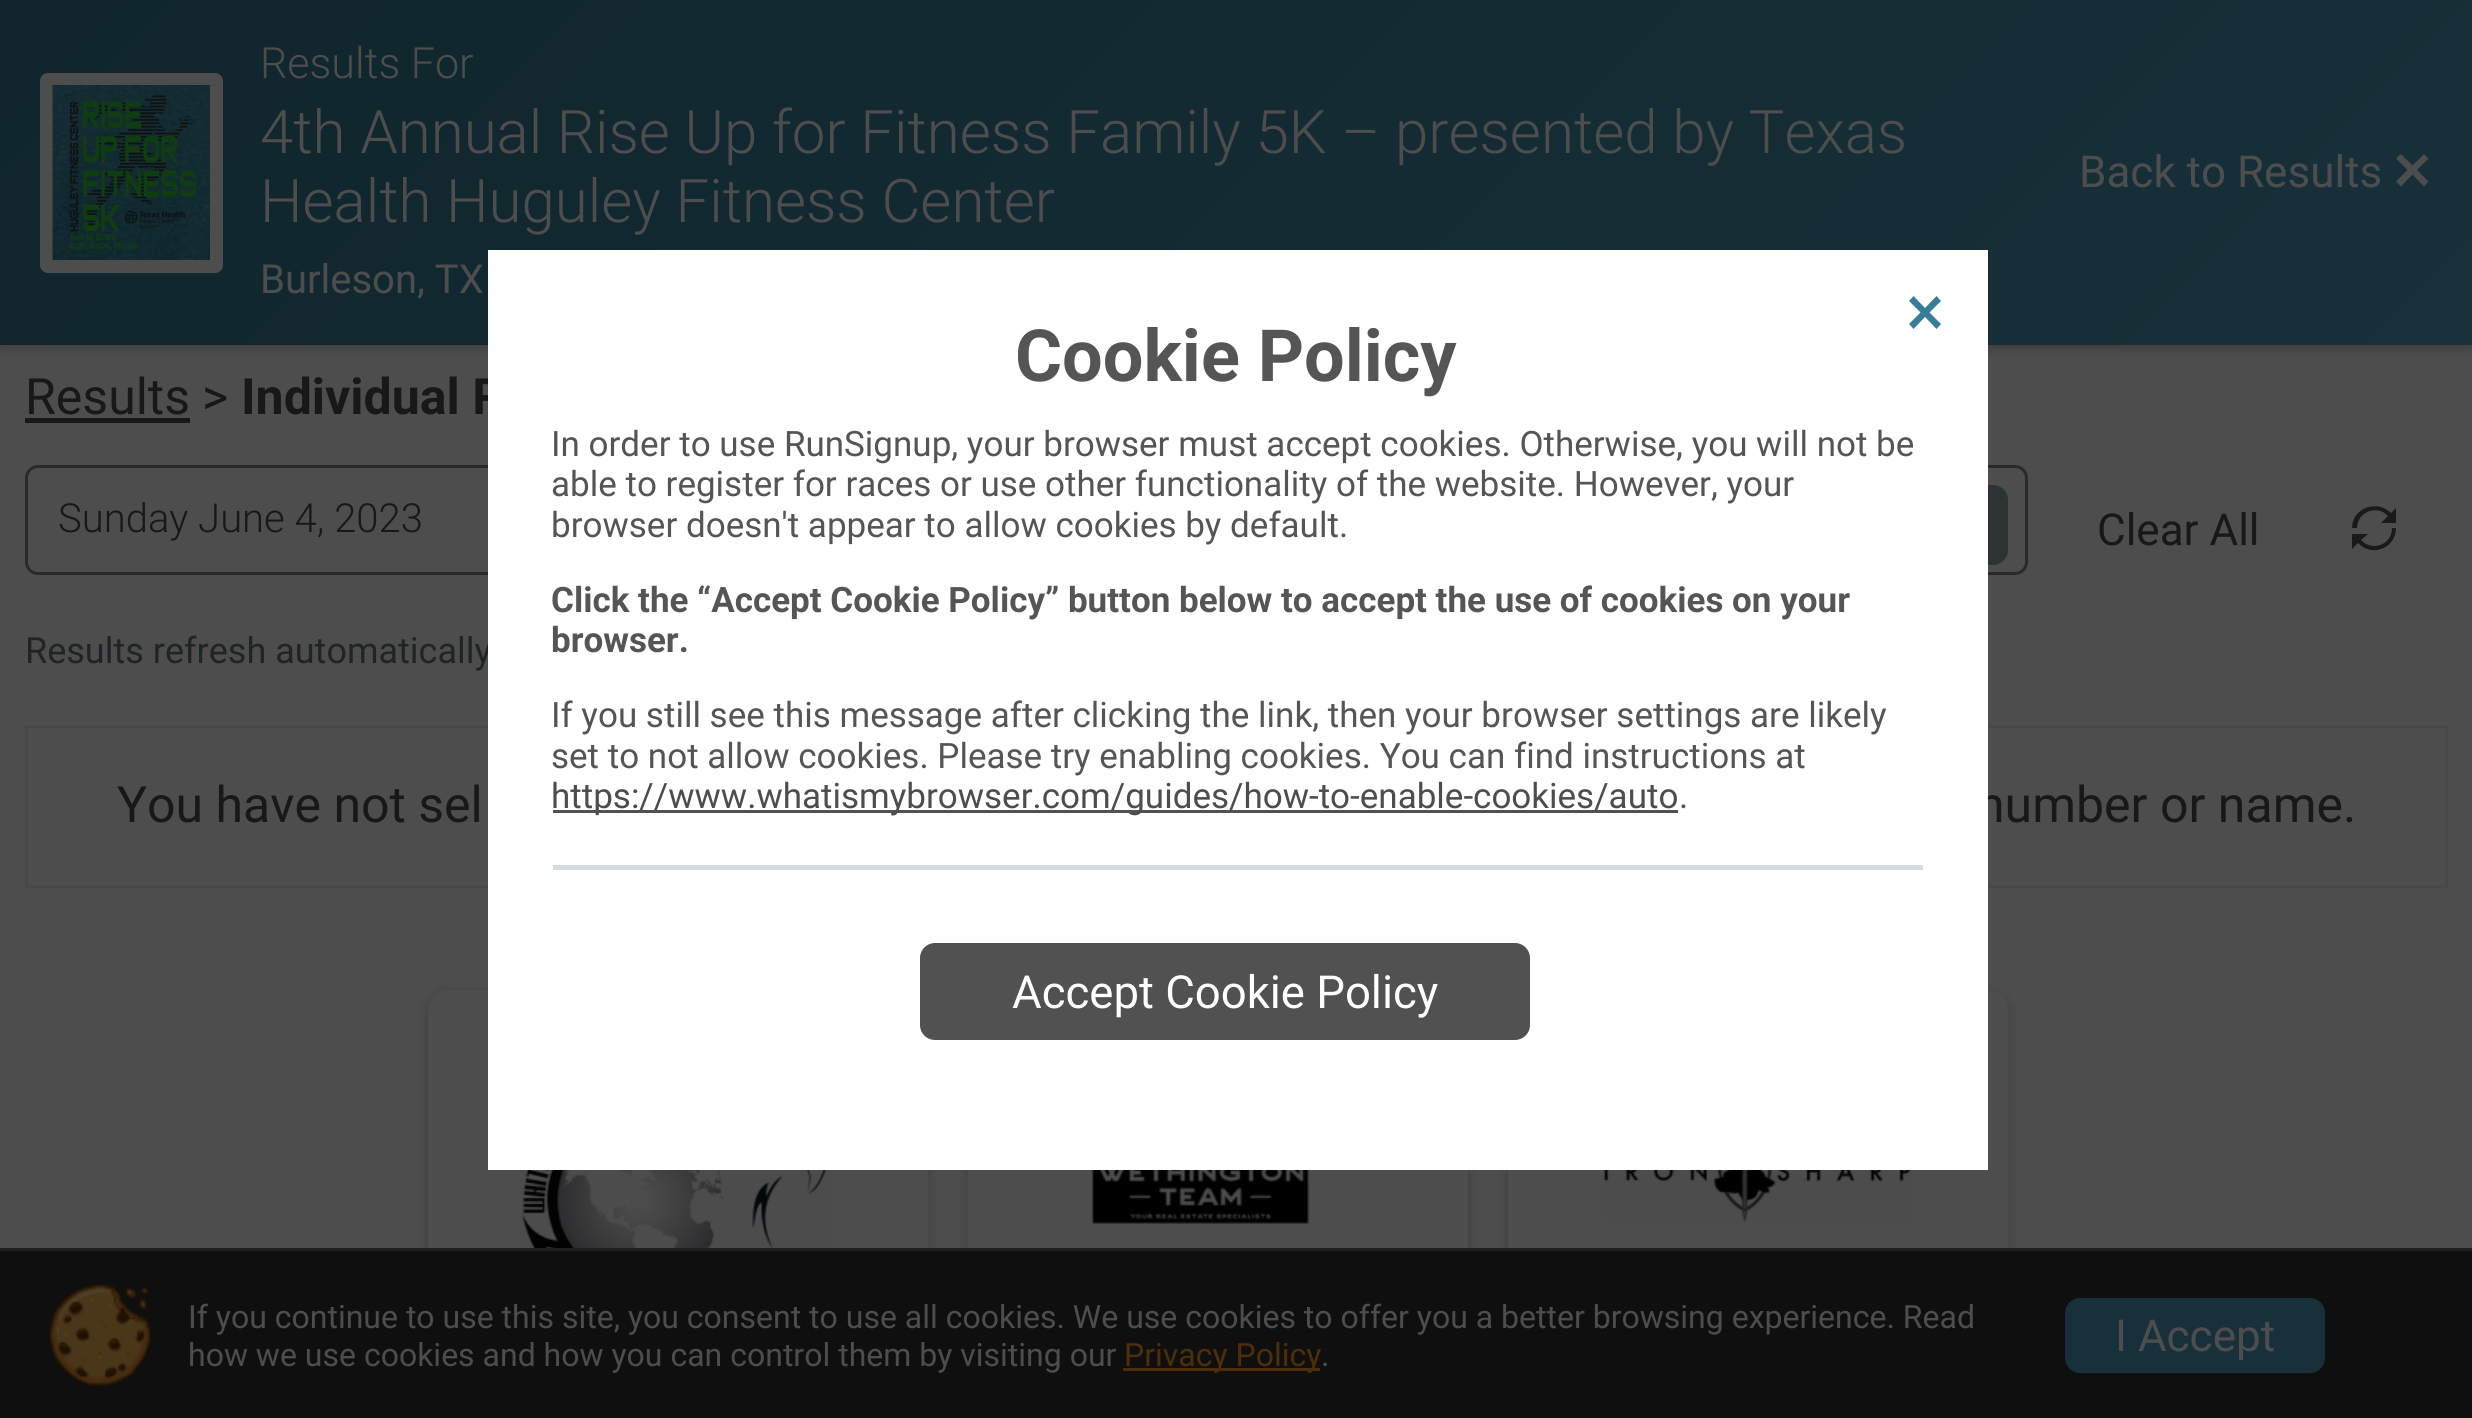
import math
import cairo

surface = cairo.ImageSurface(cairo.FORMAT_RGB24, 2472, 1418)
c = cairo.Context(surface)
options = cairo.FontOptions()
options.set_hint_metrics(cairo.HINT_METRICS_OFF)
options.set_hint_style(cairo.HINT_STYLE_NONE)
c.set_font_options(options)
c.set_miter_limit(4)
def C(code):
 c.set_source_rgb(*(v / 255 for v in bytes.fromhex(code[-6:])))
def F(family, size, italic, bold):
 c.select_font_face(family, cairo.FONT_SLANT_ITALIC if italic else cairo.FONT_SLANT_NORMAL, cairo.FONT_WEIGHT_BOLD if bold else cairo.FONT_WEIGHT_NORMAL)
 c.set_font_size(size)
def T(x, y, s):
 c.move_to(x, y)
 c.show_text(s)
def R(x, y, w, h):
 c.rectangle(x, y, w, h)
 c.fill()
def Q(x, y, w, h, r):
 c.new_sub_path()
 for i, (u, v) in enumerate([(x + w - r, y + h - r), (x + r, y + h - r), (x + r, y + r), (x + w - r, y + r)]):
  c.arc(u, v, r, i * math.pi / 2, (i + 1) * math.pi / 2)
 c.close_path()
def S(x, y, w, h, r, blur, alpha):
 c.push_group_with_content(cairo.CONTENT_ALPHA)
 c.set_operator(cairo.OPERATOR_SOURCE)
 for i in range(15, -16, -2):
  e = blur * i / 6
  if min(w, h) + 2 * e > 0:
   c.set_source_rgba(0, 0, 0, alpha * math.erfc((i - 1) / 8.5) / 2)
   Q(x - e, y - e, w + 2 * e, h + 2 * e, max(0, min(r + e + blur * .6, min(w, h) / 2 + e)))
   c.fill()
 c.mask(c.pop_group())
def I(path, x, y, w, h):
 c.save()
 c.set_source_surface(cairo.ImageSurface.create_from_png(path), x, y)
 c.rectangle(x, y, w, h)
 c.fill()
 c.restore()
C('4d4d4d')
c.paint()
C('000000')
S(0,5,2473,345,0,5,.18)
gradient = cairo.LinearGradient(1941,877,532,-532)
gradient.add_color_stop_rgba(0,0.09,0.188,0.224,1)
gradient.add_color_stop_rgba(1,0.063,0.145,0.173,1)
c.set_source(gradient)
R(0,0,2472,345)
C('4d4d4d')
Q(40,73,183,200,8)
c.fill()
I('1.png',52,85,158,175)
F('Roboto Light',43,0,0)
T(260,78,'Results For')
F('Roboto Light',60,0,0)
T(260,153,'4th Annual Rise Up for Fitness Family 5K – presented by Texas')
T(260,222,'Health Huguley Fitness Center')
F('Roboto',40,0,0)
T(260,293,'Burleson, TX')
F('Roboto',44,0,0)
T(2079,187,'Back to Results')
c.new_path()
c.move_to(2396,181.5)
c.line_to(2407.5,170)
c.line_to(2396,158.5)
c.line_to(2401,154)
c.line_to(2412.5,165.5)
c.line_to(2424,154)
c.line_to(2428.5,158.5)
c.line_to(2417,170)
c.line_to(2428.5,181.5)
c.line_to(2424,186.5)
c.line_to(2412.5,174.5)
c.line_to(2401,186.5)
c.close_path()
c.fill()
F('Roboto',50,0,0)
C('181818')
T(25,414,'Results')
R(25,418,165,5)
T(202,414,'>')
F('Roboto',50,0,1)
T(241,414,'Individual R')
Q(26.5,466.5,780,107,11.5)
C('2a2a2a')
c.set_line_width(3)
c.stroke()
F('Roboto Light',40,0,0)
C('181818')
T(58,532,'Sunday June 4, 2023')
Q(834.5,466.5,1192,107,11.5)
C('2a2a2a')
c.stroke()
C('2d3232')
Q(1928,485,80,80,15)
c.fill()
F('Roboto',44,0,0)
C('181818')
T(2097,545,'Clear All')
C('1a1a1a')
c.new_path()
c.move_to(2391,513)
c.curve_to(2377,499,2352,508,2352,528)
c.line_to(2357,528)
c.curve_to(2357,512,2377,504,2388,516)
c.line_to(2381,523)
c.line_to(2396,523)
c.line_to(2396,508)
c.close_path()
c.move_to(2392,528)
c.curve_to(2392,545,2372,552,2361,540)
c.line_to(2368,534)
c.line_to(2352,534)
c.line_to(2352,549)
c.line_to(2358,543)
c.curve_to(2372,558,2396,548,2396,528)
c.close_path()
c.fill()
F('Roboto',36,0,0)
C('1f2425')
T(25,663,'Results refresh automatically')
c.rectangle(26.5,726.5,2420,160)
C('484848')
c.stroke()
F('Roboto',50,0,0)
C('181818')
T(117,822,'You have not sel')
T(1977,822,'number or name.')
C('000000')
S(428,993,500,375,20,6,.2)
C('4d4d4d')
Q(428,990,500,375,20)
c.fill()
I('2.png',521,1170,309,78)
C('000000')
S(968,993,500,375,20,6,.2)
C('4d4d4d')
R(968,1170,500,78)
I('3.png',1091,1170,219,54)
C('000000')
S(1508,993,500,375,20,6,.2)
C('4d4d4d')
Q(1508,990,500,375,20)
c.fill()
I('4.png',1603,1170,308,53)
c.rectangle(489.5,251.5,1497,917)
C('ffffff')
c.stroke()
R(491,253,1494,914)
C('387e99')
c.new_path()
c.move_to(1909,324)
c.line_to(1920.5,312.5)
c.line_to(1909,301)
c.line_to(1913.5,296)
c.line_to(1925,308)
c.line_to(1936.5,296)
c.line_to(1941,301)
c.line_to(1929.5,312.5)
c.line_to(1941,324)
c.line_to(1936.5,329)
c.line_to(1925,317)
c.line_to(1913.5,329)
c.close_path()
c.fill()
F('Roboto',72,0,1)
C('555555')
T(1015,381,'Cookie Policy')
F('Roboto',35,0,0)
T(551,456,'In order to use RunSignup, your browser must accept cookies. Otherwise, you will not be')
T(551,496,'able to register for races or use other functionality of the website. However, your')
T(551,537,'browser doesn\'t appear to allow cookies by default.')
F('Roboto',35,0,1)
T(551,612,'Click the “Accept Cookie Policy” button below to accept the use of cookies on your')
T(551,652,'browser.')
F('Roboto',35,0,0)
T(551,727,'If you still see this message after clicking the link, then your browser settings are likely')
T(551,768,'set to not allow cookies. Please try enabling cookies. You can find instructions at')
C('515151')
R(553,810,1125,3)
C('4d4d4d')
T(551,808,'https://www.whatismybrowser.com/guides/how-to-enable-cookies/auto')
C('555555')
T(1679,808,'.')
C('d3dbdf')
R(553,865,1370,5)
C('515151')
Q(920,943,610,97,15)
c.fill()
F('Roboto',45.5,0,0)
C('ffffff')
T(1012,1008,'Accept Cookie Policy')
C('0f0f0f')
R(0,1251,2472,167)
C('1f1f1f')
R(0,1248,2472,3)
I('5.png',50,1285,100,101)
F('Roboto',32,0,0)
C('4d4d4d')
T(188,1328,'If you continue to use this site, you consent to use all cookies. We use cookies to offer you a better browsing experience. Read')
T(188,1366,'how we use cookies and how you can control them by visiting our')
C('4c2e0b')
R(1123,1368,197,3)
T(1124,1366,'Privacy Policy')
C('4d4d4d')
T(1321,1366,'.')
C('173039')
Q(2065,1298,260,75,15)
c.fill()
F('Roboto',44,0,0)
C('4d4d4d')
T(2115,1351,'I Accept')
surface.write_to_png('o.png')
